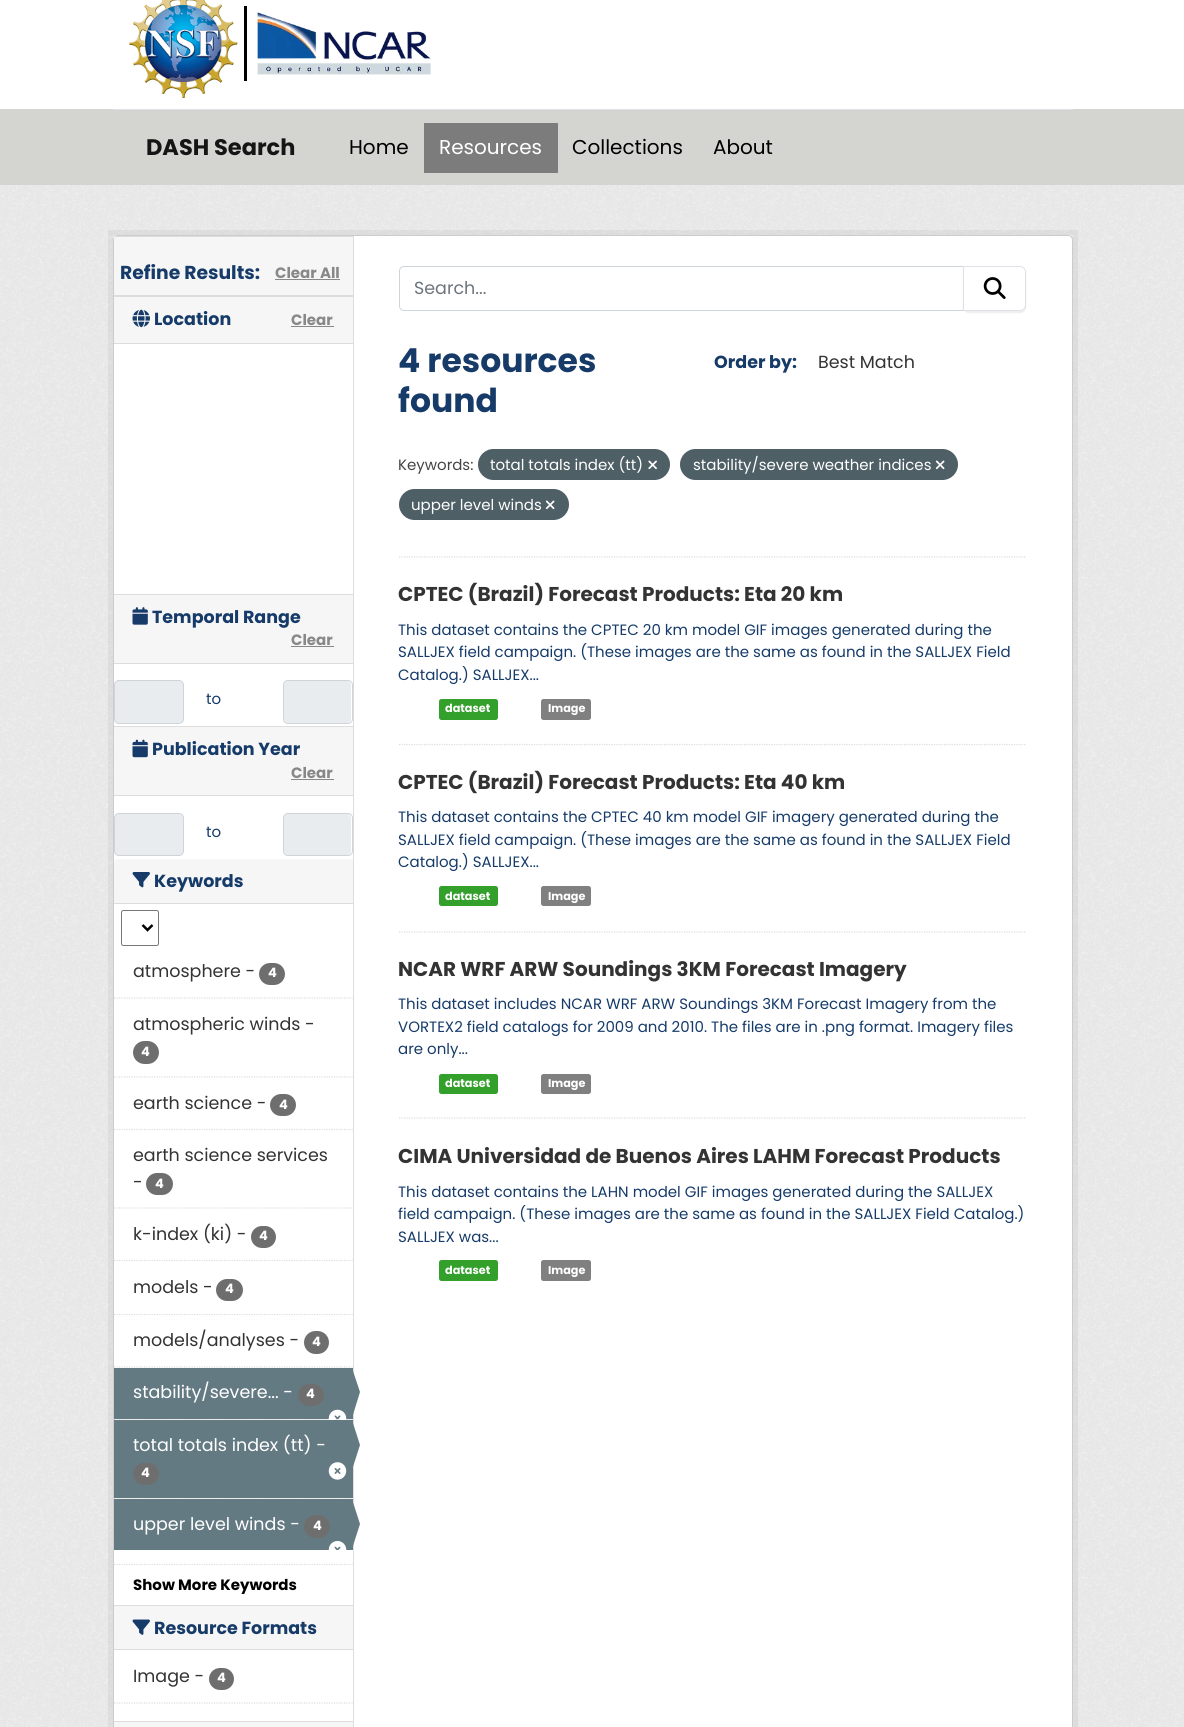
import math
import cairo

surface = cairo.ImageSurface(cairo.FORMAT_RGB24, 1184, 1727)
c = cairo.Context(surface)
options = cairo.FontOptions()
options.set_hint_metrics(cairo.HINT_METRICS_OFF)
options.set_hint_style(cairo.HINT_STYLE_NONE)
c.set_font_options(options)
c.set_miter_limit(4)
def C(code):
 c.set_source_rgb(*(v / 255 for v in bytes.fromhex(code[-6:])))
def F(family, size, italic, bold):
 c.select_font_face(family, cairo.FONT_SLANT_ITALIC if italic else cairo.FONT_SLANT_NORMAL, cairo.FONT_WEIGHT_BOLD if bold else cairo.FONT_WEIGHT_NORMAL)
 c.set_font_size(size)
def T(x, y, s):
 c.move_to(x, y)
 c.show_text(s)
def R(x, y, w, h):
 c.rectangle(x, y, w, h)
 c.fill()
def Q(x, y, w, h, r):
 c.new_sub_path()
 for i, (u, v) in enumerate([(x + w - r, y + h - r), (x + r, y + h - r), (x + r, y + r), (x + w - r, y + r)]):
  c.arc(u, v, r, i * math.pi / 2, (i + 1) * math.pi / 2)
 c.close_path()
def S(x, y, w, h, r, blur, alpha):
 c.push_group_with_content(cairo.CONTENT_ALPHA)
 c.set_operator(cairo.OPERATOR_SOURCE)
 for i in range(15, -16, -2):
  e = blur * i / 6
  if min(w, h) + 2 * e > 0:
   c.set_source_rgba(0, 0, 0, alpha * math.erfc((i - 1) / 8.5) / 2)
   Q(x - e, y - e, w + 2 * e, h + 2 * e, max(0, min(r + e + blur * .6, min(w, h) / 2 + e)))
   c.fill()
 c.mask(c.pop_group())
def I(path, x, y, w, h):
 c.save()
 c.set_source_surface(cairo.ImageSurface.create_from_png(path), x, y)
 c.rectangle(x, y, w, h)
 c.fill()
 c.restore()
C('ffffff')
c.paint()
I('1.png',129,0,109,98)
C('000000')
R(244,6,3,75)
I('2.png',257,12,174,63)
C('d4d4d0')
R(0,109,1184,76)
C('dee2e6')
R(113,109,960,1)
F('Poppins',22.5,0,1)
C('151515')
T(146,155,'DASH Search')
F('Poppins',20,0,0)
C('000000')
T(349,154,'Home')
C('7c7c7c')
R(424,123,134,50)
C('ffffff')
T(439,154,'Resources')
C('000000')
T(572,154,'Collections')
T(713,154,'About')
C('eeeeee')
R(0,185,1184,1542)
I('3.png',0,185,1184,1542)
c.rectangle(110.5,232.5,965,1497)
c.set_source_rgba(0,0,0,0.05)
c.set_line_width(5)
c.stroke()
C('ffffff')
Q(113.5,235.5,959,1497,4.5)
c.fill_preserve()
C('cccccc')
c.set_line_width(1)
c.stroke()
C('f6f6f6')
R(114,237,239,58)
C('dddddd')
R(114,236,239,1)
R(114,295,239,2)
F('Poppins',18.75,0,1)
C('163b69')
T(120,279,'Refine Results:')
F('Poppins',15,0,1)
C('888888')
T(275,278,'Clear All')
R(275,279,65,1)
C('f6f6f6')
R(114,297,239,46)
C('dddddd')
R(114,343,239,1)
I('4.png',132,309,18,19)
F('Poppins',17.5,0,1)
C('163b69')
T(154,325,'Location')
F('Poppins',15,0,1)
C('888888')
T(291,325,'Clear')
R(291,326,43,1)
C('f6f6f6')
R(114,595,239,68)
C('dddddd')
R(114,594,239,1)
R(114,663,239,1)
I('5.png',132,607,16,18)
F('Poppins',17.5,0,1)
C('163b69')
T(152,623,'Temporal Range')
F('Poppins',15,0,1)
C('888888')
T(291,645,'Clear')
R(291,646,43,1)
C('e9ecef')
Q(114.5,680.5,69,43,4.5)
c.fill_preserve()
C('ced4da')
c.stroke()
F('Poppins',15,0,0)
C('163b69')
T(206,704,'to')
C('e9ecef')
Q(284,681,67,42,4)
c.fill()
Q(283.5,680.5,69,43,4.5)
C('ced4da')
c.stroke()
C('f6f6f6')
R(114,727,239,68)
C('dddddd')
R(114,726,239,1)
R(114,795,239,1)
I('6.png',132,739,16,19)
F('Poppins',17.5,0,1)
C('163b69')
T(152,755,'Publication Year')
F('Poppins',15,0,1)
C('888888')
T(291,778,'Clear')
R(291,779,43,1)
C('e9ecef')
Q(114.5,813.5,69,42,4.5)
c.fill_preserve()
C('ced4da')
c.stroke()
F('Poppins',15,0,0)
C('163b69')
T(206,837,'to')
C('e9ecef')
Q(284,814,67,41,4)
c.fill()
Q(283.5,813.5,69,42,4.5)
C('ced4da')
c.stroke()
C('f6f6f6')
c.new_path()
c.move_to(118,859)
c.line_to(353,859)
c.line_to(353,904)
c.line_to(114,904)
c.line_to(114,863)
c.curve_to(114,861,116,859,118,859)
c.close_path()
c.fill()
C('dddddd')
R(114,903,239,1)
I('7.png',132,872,18,16)
F('Poppins',17.5,0,1)
C('163b69')
T(154,887,'Keywords')
Q(121.5,910.5,37,35,2)
C('767676')
c.stroke()
c.new_path()
c.move_to(142.5,925)
c.line_to(147.5,930)
c.line_to(152.5,925)
C('000000')
c.set_line_width(2.5)
c.stroke()
c.new_path()
c.move_to(114,998)
c.line_to(352.5,998)
C('dddddd')
c.set_line_width(1.2)
c.set_dash([1.25,1.25])
c.stroke()
F('Poppins',17.5,0,0)
C('333333')
T(133,977,'atmosphere -')
C('6e6e6e')
Q(259,963,26,22,11)
c.fill()
F('Poppins',13,0,1)
C('ffffff')
T(268,977,'4')
c.new_path()
c.move_to(114,1077)
c.line_to(352.5,1077)
C('dddddd')
c.stroke()
F('Poppins',17.5,0,0)
C('333333')
T(133,1030,'atmospheric winds -')
C('6e6e6e')
Q(133,1041,26,23,11.5)
c.fill()
F('Poppins',13,0,1)
C('ffffff')
T(141,1056,'4')
c.new_path()
c.move_to(114,1129.5)
c.line_to(352.5,1129.5)
C('dddddd')
c.stroke()
F('Poppins',17.5,0,0)
C('333333')
T(133,1109,'earth science -')
C('6e6e6e')
Q(270,1094,26,22,11)
c.fill()
F('Poppins',13,0,1)
C('ffffff')
T(279,1109,'4')
c.new_path()
c.move_to(114,1208)
c.line_to(352.5,1208)
C('dddddd')
c.stroke()
F('Poppins',17.5,0,0)
C('333333')
T(133,1161,'earth science services')
T(133,1188,'-')
C('6e6e6e')
Q(146,1173,27,22,11)
c.fill()
F('Poppins',13,0,1)
C('ffffff')
T(155,1188,'4')
c.new_path()
c.move_to(114,1260.5)
c.line_to(352.5,1260.5)
C('dddddd')
c.stroke()
F('Poppins',17.5,0,0)
C('333333')
T(133,1240,'k-index (ki) -')
C('6e6e6e')
Q(251,1226,25,22,11)
c.fill()
F('Poppins',13,0,1)
C('ffffff')
T(259,1240,'4')
c.new_path()
c.move_to(114,1314.5)
c.line_to(352.5,1314.5)
C('dddddd')
c.stroke()
F('Poppins',17.5,0,0)
C('333333')
T(133,1293,'models -')
C('6e6e6e')
Q(216,1279,27,22,11)
c.fill()
F('Poppins',13,0,1)
C('ffffff')
T(225,1293,'4')
c.new_path()
c.move_to(114,1367)
c.line_to(352.5,1367)
C('dddddd')
c.stroke()
F('Poppins',17.5,0,0)
C('333333')
T(133,1346,'models/analyses -')
C('6e6e6e')
Q(304,1331,25,23,11.5)
c.fill()
F('Poppins',13,0,1)
C('ffffff')
T(312,1346,'4')
C('f6f6f6')
R(115,1419,238,1)
c.new_path()
c.move_to(114,1419.5)
c.line_to(352.5,1419.5)
C('dddddd')
c.stroke()
C('647a82')
R(114,1368,239,51)
F('Poppins',17.5,0,0)
C('ffffff')
T(133,1398,'stability/severe... -')
C('6e6e6e')
Q(298,1384,26,22,11)
c.fill()
F('Poppins',13,0,1)
C('ffffff')
T(306,1398,'4')
C('dddddd')
R(353,236,1,1491)
C('647a82')
c.new_path()
c.move_to(352,1418)
c.line_to(352,1368)
c.line_to(360,1392)
c.close_path()
c.fill()
I('8.png',328,1409,19,11)
C('f6f6f6')
R(114,1498,239,1)
c.new_path()
c.move_to(114,1498)
c.line_to(352.5,1498)
C('dddddd')
c.stroke()
C('647a82')
R(114,1420,239,78)
F('Poppins',17.5,0,0)
C('ffffff')
T(133,1451,'total totals index (tt) -')
C('647a82')
c.new_path()
c.move_to(352,1470)
c.line_to(352,1420)
c.line_to(360,1445)
c.close_path()
c.fill()
C('6e6e6e')
Q(133,1463,26,22,11)
c.fill()
F('Poppins',13,0,1)
C('ffffff')
T(141,1477,'4')
I('9.png',328,1462,19,18)
C('647a82')
R(114,1499,239,51)
F('Poppins',17.5,0,0)
C('ffffff')
T(133,1530,'upper level winds -')
C('6e6e6e')
Q(304,1515,26,23,11.5)
c.fill()
F('Poppins',13,0,1)
C('ffffff')
T(313,1530,'4')
C('647a82')
c.new_path()
c.move_to(352,1549)
c.line_to(352,1499)
c.line_to(360,1524)
c.close_path()
c.fill()
I('10.png',328,1540,19,10)
c.new_path()
c.move_to(114,1564.5)
c.line_to(352.5,1564.5)
C('dddddd')
c.stroke()
F('Poppins',15,0,1)
C('000000')
T(133,1590,'Show More Keywords')
C('f6f6f6')
R(114,1606,239,43)
C('dddddd')
R(114,1605,239,1)
R(114,1649,239,1)
I('11.png',132,1619,18,16)
F('Poppins',17.5,0,1)
C('163b69')
T(154,1634,'Resource Formats')
F('Poppins',17.5,0,0)
C('333333')
T(133,1682,'Image -')
C('6e6e6e')
Q(209,1668,25,22,11)
c.fill()
F('Poppins',13,0,1)
C('ffffff')
T(217,1682,'4')
c.new_path()
c.move_to(114,1703)
c.line_to(352.5,1703)
C('dddddd')
c.stroke()
C('f6f6f6')
R(114,1722,239,5)
C('dddddd')
R(114,1721,239,1)
c.new_path()
c.move_to(399,557)
c.line_to(1026,557)
c.stroke()
c.new_path()
c.move_to(404,266.5)
c.line_to(963.5,266.5)
c.line_to(963.5,310.5)
c.line_to(404,310.5)
c.curve_to(401.5,310.5,399.5,308.5,399.5,306)
c.line_to(399.5,271)
c.curve_to(399.5,268.5,401.5,266.5,404,266.5)
c.close_path()
C('ced4da')
c.set_line_width(1)
c.set_dash([])
c.stroke()
F('Poppins',17.5,0,0)
C('6c757d')
T(414,294,'Search...')
C('000000')
S(963,268,63,45,6,.5,.07)
C('ffffff')
c.new_path()
c.move_to(963.5,266.5)
c.line_to(1020,266.5)
c.curve_to(1023,266.5,1025.5,269,1025.5,272)
c.line_to(1025.5,305)
c.curve_to(1025.5,308,1023,310.5,1020,310.5)
c.line_to(963.5,310.5)
c.close_path()
c.fill_preserve()
C('dee2e6')
c.stroke()
I('12.png',983,277,23,22)
F('Poppins',33,0,1)
C('163b69')
T(398,372,'4 resources')
T(398,412,'found')
F('Poppins',17.5,0,1)
T(714,368,'Order by:')
F('Poppins',17.5,0,0)
C('333333')
T(818,368,'Best Match')
F('Poppins',15,0,0)
C('444444')
T(398,470,'Keywords:')
C('4e5f65')
Q(478,449,192,31,15.5)
c.fill()
C('ffffff')
T(490,470,'total totals index (tt)')
I('13.png',648,460,9,10)
C('4e5f65')
Q(680,449,278,31,15.5)
c.fill()
C('ffffff')
T(693,470,'stability/severe weather indices')
I('14.png',935,460,10,10)
C('4e5f65')
Q(399,489,170,31,15.5)
c.fill()
C('ffffff')
T(411,510,'upper level winds')
I('14.png',545,500,10,10)
c.new_path()
c.move_to(399,744.5)
c.line_to(1026,744.5)
C('dddddd')
c.set_line_width(1.2)
c.set_dash([1.25,1.25])
c.stroke()
F('Poppins',20,0,1)
C('333333')
T(398,601,'CPTEC (Brazil) Forecast Products: Eta 20 km')
F('Poppins',15,0,0)
C('163b69')
T(398,635,'This dataset contains the CPTEC 20 km model GIF images generated during the')
T(398,657,'SALLJEX field campaign. (These images are the same as found in the SALLJEX Field')
T(398,680,'Catalog.) SALLJEX...')
C('33a02c')
Q(439,699,59,21,2.5)
c.fill()
F('Poppins',11.25,0,1)
C('ffffff')
T(445,712,'dataset')
C('808080')
Q(541,699,50,21,2.5)
c.fill()
C('ffffff')
T(548,712,'Image')
c.new_path()
c.move_to(399,932)
c.line_to(1026,932)
C('dddddd')
c.stroke()
F('Poppins',20,0,1)
C('333333')
T(398,789,'CPTEC (Brazil) Forecast Products: Eta 40 km')
F('Poppins',15,0,0)
C('163b69')
T(398,822,'This dataset contains the CPTEC 40 km model GIF imagery generated during the')
T(398,845,'SALLJEX field campaign. (These images are the same as found in the SALLJEX Field')
T(398,867,'Catalog.) SALLJEX...')
C('33a02c')
Q(439,886,59,20,2.5)
c.fill()
F('Poppins',11.25,0,1)
C('ffffff')
T(445,900,'dataset')
C('808080')
Q(541,886,50,20,2.5)
c.fill()
C('ffffff')
T(548,900,'Image')
c.new_path()
c.move_to(399,1118)
c.line_to(1026,1118)
C('dddddd')
c.stroke()
F('Poppins',20,0,1)
C('333333')
T(398,976,'NCAR WRF ARW Soundings 3KM Forecast Imagery')
F('Poppins',15,0,0)
C('163b69')
T(398,1009,'This dataset includes NCAR WRF ARW Soundings 3KM Forecast Imagery from the')
T(398,1032,'VORTEX2 field catalogs for 2009 and 2010. The files are in .png format. Imagery files')
T(398,1054,'are only...')
C('33a02c')
Q(439,1074,59,20,2.5)
c.fill()
F('Poppins',11.25,0,1)
C('ffffff')
T(445,1087,'dataset')
C('808080')
Q(541,1074,50,20,2.5)
c.fill()
C('ffffff')
T(548,1087,'Image')
F('Poppins',20,0,1)
C('333333')
T(398,1163,'CIMA Universidad de Buenos Aires LAHM Forecast Products')
F('Poppins',15,0,0)
C('163b69')
T(398,1197,'This dataset contains the LAHN model GIF images generated during the SALLJEX')
T(398,1219,'field campaign. (These images are the same as found in the SALLJEX Field Catalog.)')
T(398,1242,'SALLJEX was...')
C('33a02c')
Q(439,1260,59,21,2.5)
c.fill()
F('Poppins',11.25,0,1)
C('ffffff')
T(445,1274,'dataset')
C('808080')
Q(541,1260,50,21,2.5)
c.fill()
C('ffffff')
T(548,1274,'Image')
surface.write_to_png('o.png')
